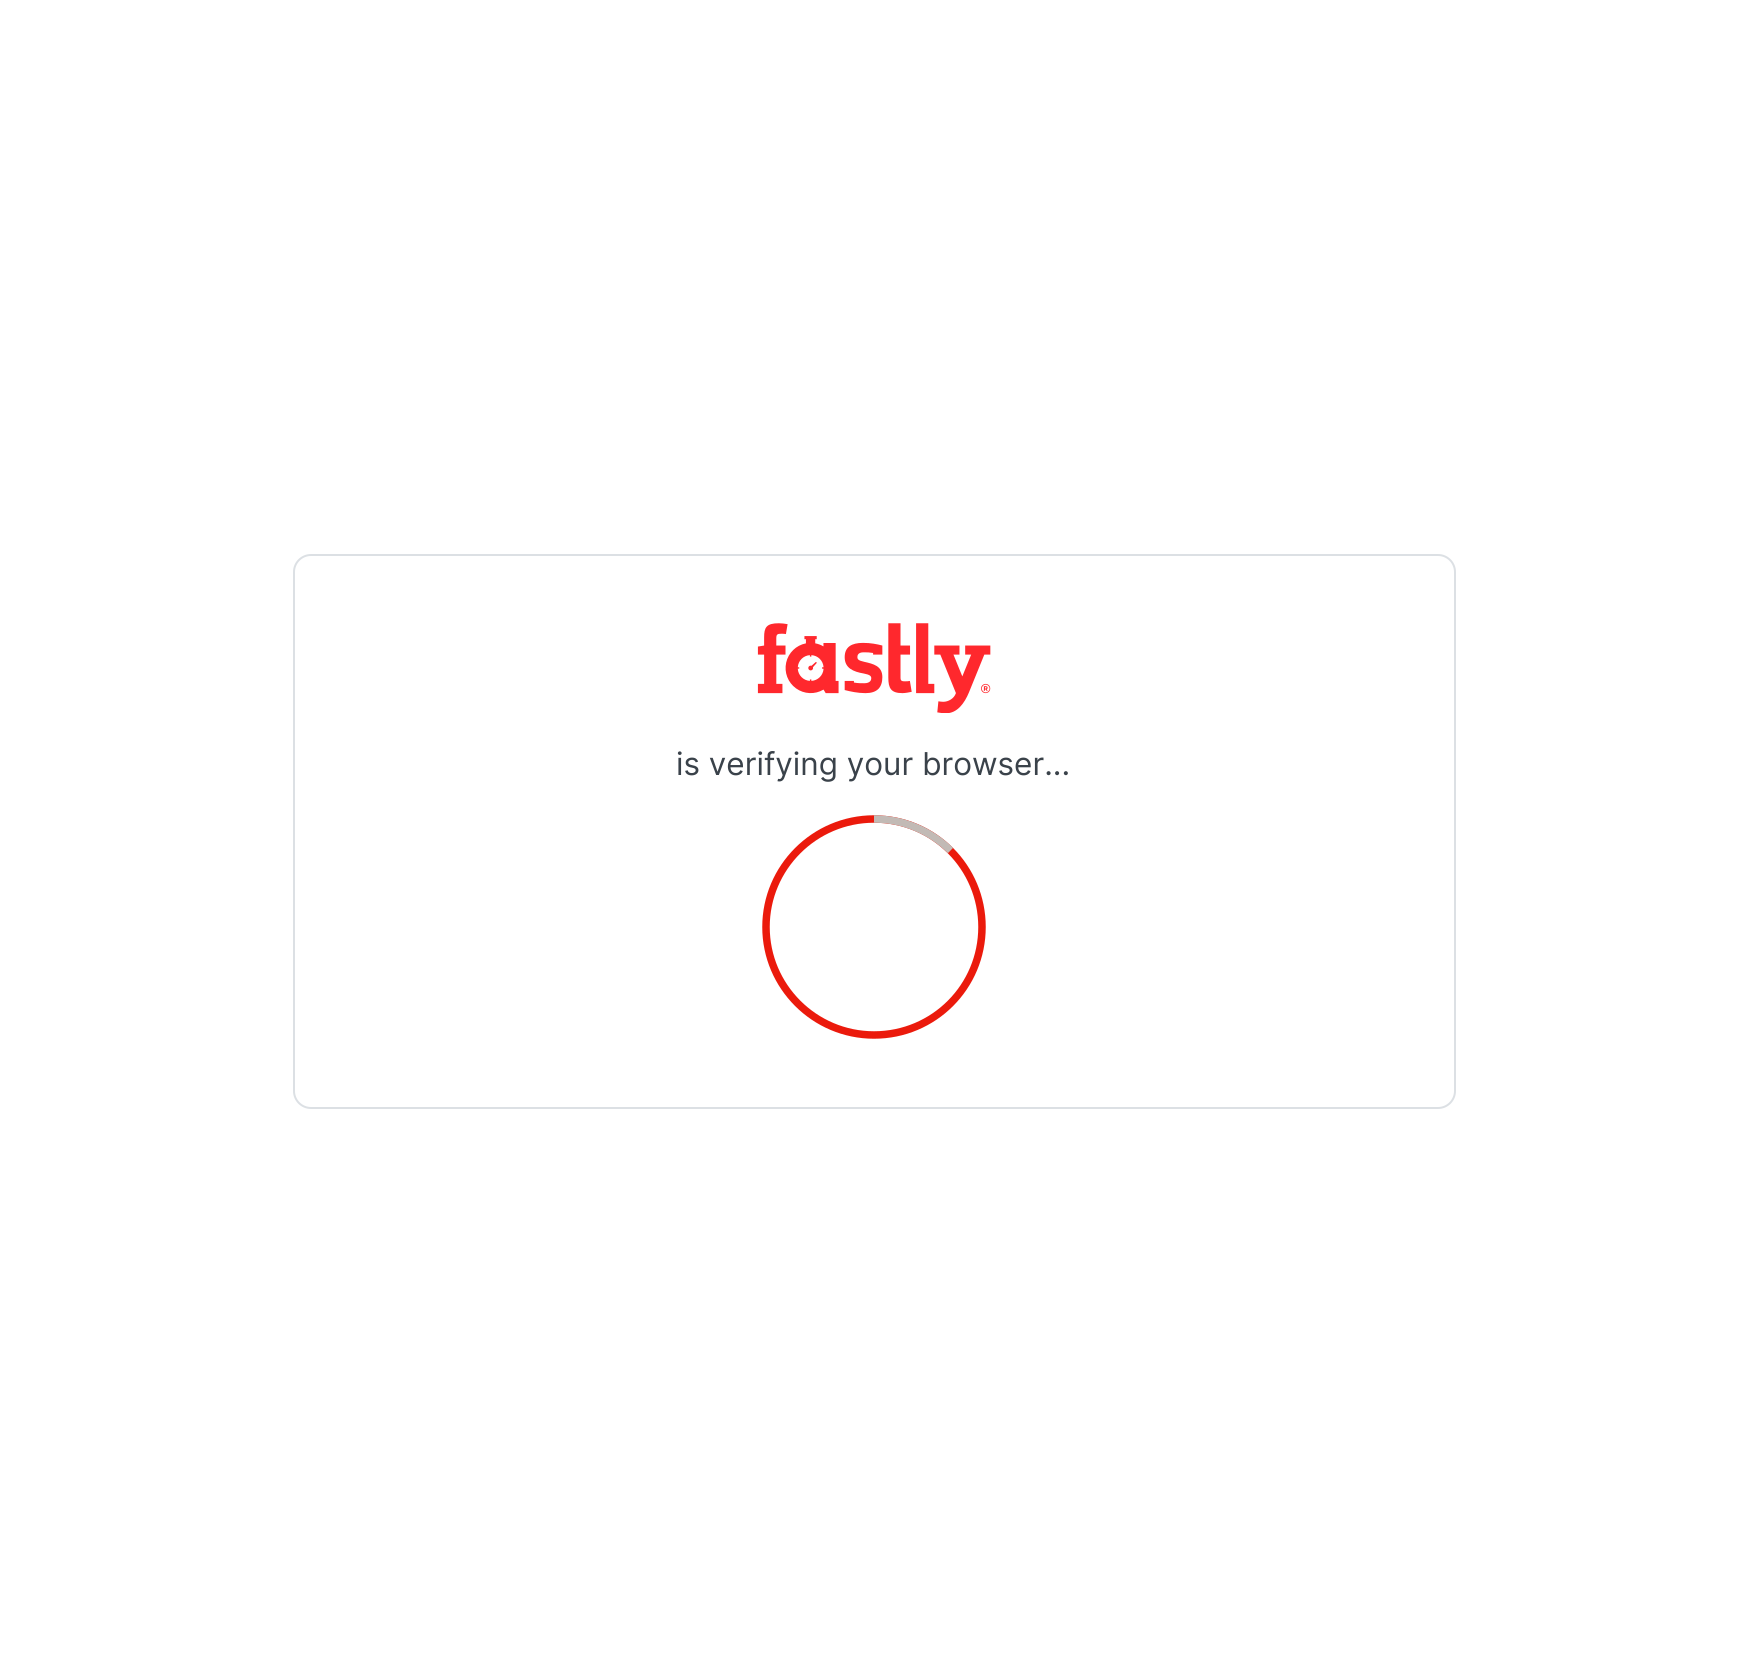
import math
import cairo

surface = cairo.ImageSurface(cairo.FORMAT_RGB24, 1746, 1660)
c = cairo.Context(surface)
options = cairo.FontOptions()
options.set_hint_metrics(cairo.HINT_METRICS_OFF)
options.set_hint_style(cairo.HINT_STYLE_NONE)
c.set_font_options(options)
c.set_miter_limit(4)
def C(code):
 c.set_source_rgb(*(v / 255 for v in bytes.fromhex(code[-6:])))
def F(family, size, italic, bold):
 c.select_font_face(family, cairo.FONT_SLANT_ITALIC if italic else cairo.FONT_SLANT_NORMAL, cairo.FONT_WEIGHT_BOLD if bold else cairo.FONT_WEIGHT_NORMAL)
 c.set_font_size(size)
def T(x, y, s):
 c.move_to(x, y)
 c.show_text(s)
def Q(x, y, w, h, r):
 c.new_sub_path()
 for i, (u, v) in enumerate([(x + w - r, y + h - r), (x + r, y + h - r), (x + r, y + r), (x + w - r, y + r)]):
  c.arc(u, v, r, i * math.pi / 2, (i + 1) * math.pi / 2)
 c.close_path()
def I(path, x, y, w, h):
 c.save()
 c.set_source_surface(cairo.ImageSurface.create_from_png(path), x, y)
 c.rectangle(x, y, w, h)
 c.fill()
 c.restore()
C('ffffff')
c.paint()
Q(294,555,1161,553,17)
C('dce0e4')
c.stroke()
I('1.png',757,623,234,90)
F('Inter',31.5,0,0)
C('3a424a')
T(676,775,'is verifying your browser...')
c.new_path()
c.move_to(766,927)
c.curve_to(766,867.5,814.5,819,874,819)
c.curve_to(934,819,982,867.5,982,927)
c.curve_to(982,986.5,934,1035,874,1035)
c.curve_to(814.5,1035,766,986.5,766,927)
c.close_path()
C('eb1a0c')
c.set_line_width(7.5)
c.stroke()
c.new_path()
c.move_to(950.5,850.5)
c.curve_to(930,830.5,903,819,874,819)
C('c2bab5')
c.stroke()
surface.write_to_png('o.png')
